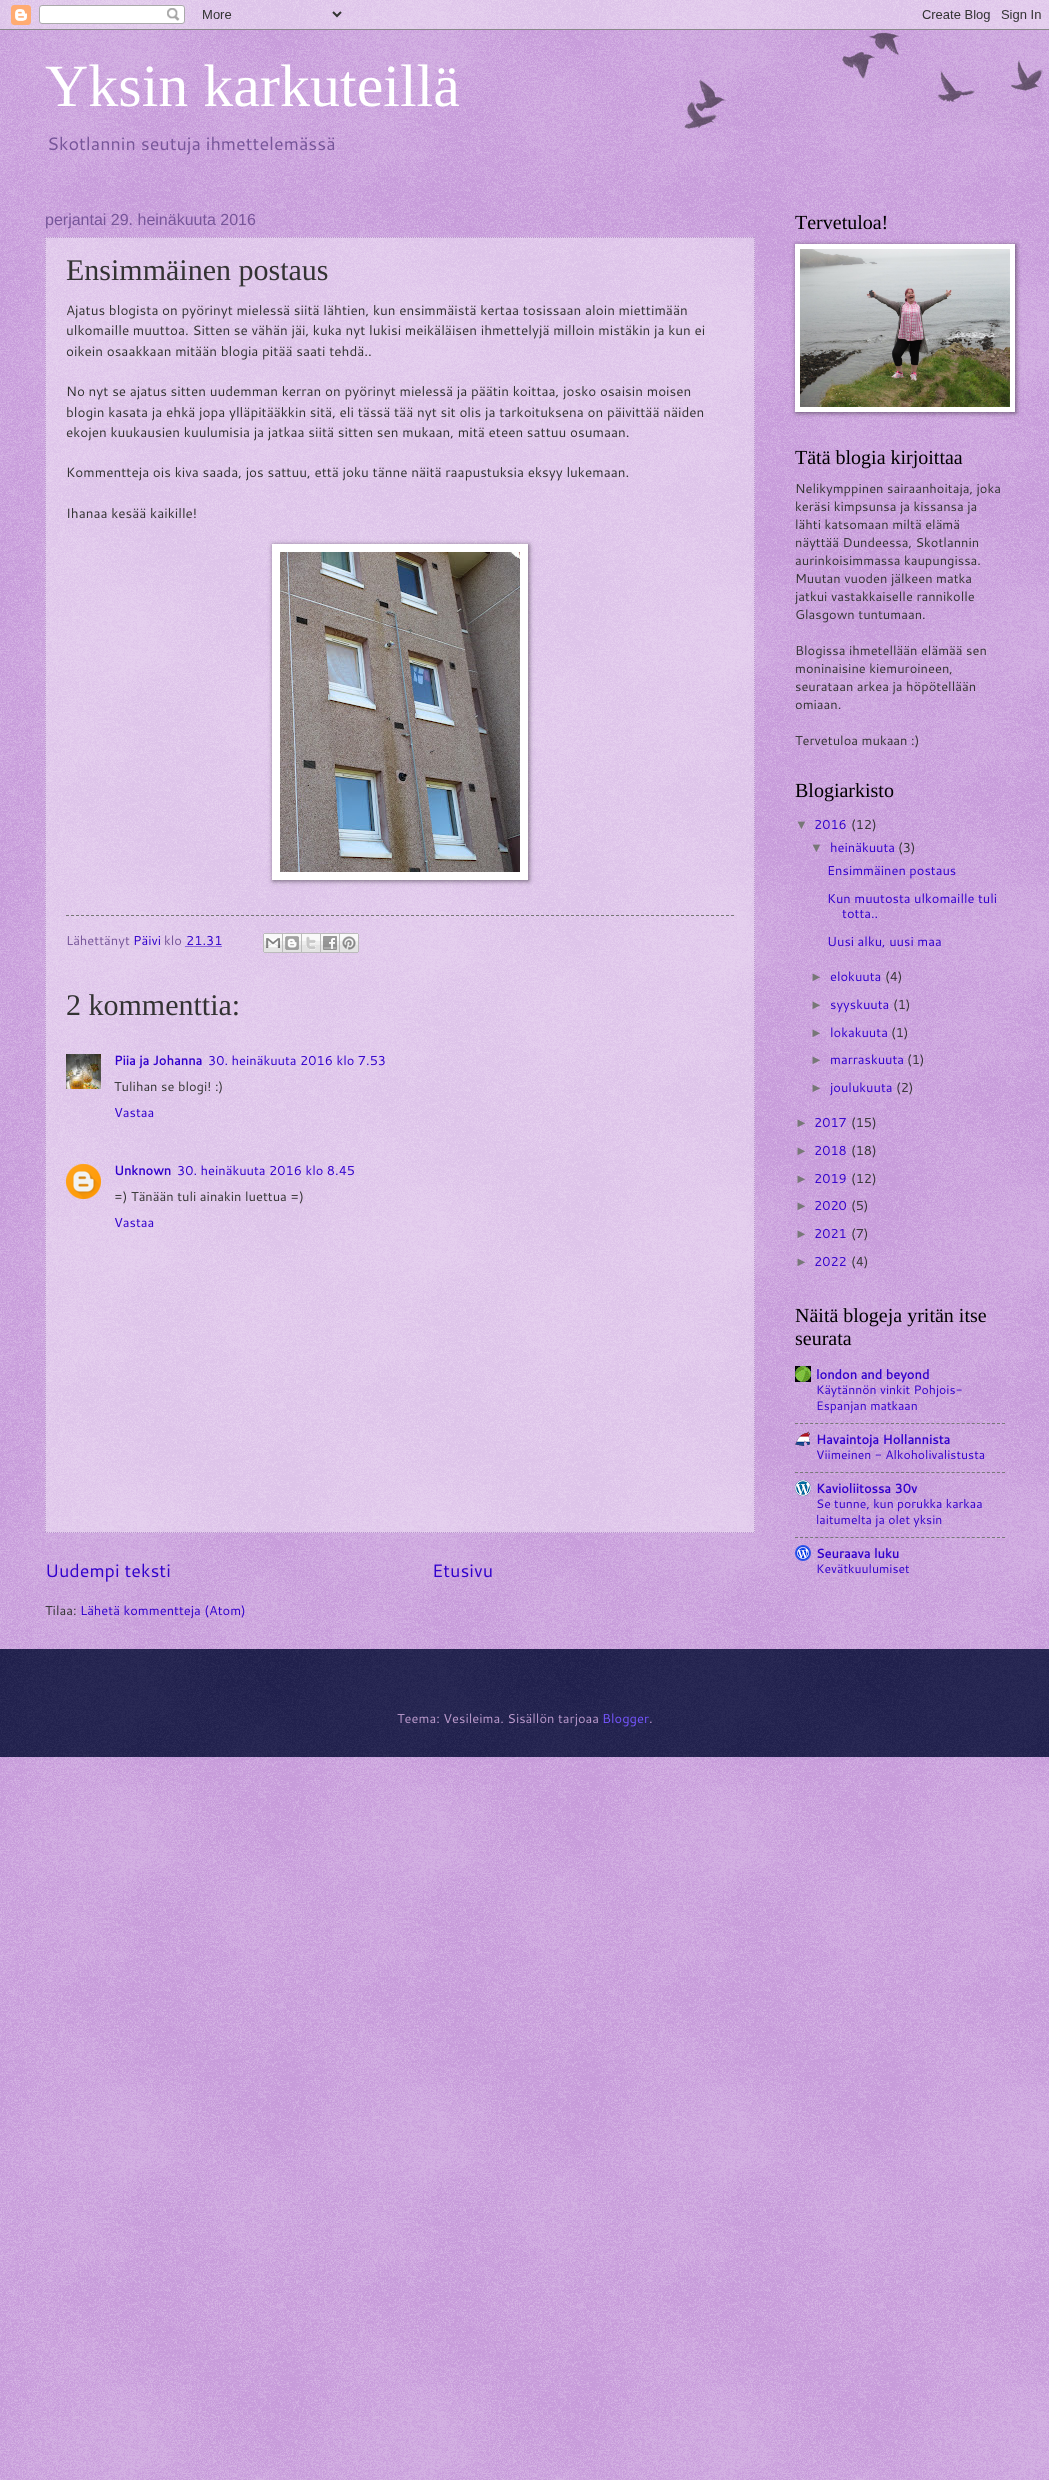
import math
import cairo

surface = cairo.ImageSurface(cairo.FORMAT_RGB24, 1049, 2480)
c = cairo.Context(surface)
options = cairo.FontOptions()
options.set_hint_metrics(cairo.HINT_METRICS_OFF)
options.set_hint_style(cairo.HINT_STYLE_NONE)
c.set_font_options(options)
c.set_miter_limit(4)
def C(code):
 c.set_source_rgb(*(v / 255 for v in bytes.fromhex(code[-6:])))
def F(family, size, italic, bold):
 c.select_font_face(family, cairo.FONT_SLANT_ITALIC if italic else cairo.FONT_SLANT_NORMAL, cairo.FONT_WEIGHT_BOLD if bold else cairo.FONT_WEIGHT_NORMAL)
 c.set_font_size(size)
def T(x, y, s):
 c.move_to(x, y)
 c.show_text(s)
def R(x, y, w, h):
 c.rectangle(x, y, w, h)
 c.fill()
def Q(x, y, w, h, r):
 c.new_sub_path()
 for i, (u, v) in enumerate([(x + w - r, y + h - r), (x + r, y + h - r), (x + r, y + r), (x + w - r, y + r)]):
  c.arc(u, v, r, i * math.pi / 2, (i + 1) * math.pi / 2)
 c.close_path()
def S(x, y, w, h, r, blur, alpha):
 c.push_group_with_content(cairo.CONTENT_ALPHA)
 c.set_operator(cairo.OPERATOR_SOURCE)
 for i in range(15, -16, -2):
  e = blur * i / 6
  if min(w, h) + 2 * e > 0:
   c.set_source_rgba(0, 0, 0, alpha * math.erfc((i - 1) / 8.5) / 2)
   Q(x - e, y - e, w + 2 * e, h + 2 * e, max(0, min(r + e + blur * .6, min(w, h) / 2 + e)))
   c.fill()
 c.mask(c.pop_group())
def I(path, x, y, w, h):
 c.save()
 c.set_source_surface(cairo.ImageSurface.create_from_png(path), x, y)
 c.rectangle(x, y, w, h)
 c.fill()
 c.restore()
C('9f54c0')
c.paint()
I('1.png',0,0,1049,2480)
I('2.png',0,0,1049,30)
I('3.png',684,32,359,97)
F('Liberation Serif',60,0,0)
C('ffffff')
T(45,106,'Yksin karkuteillä')
F('Cantarell',18,0,0)
C('765599')
T(47,150,'Skotlannin seutuja ihmettelemässä')
F('Liberation Sans',16,0,0)
T(45,225,'perjantai 29. heinäkuuta 2016')
c.set_source_rgba(1,1,1,0.4)
R(45,237,710,1296)
c.new_path()
c.move_to(45,237.5)
c.line_to(755,237.5)
C('ba99cc')
c.set_line_width(1)
c.set_dash([1,1])
c.stroke()
c.new_path()
c.move_to(754.5,237)
c.line_to(754.5,1533)
c.stroke()
c.new_path()
c.move_to(45,1532.5)
c.line_to(755,1532.5)
c.stroke()
c.new_path()
c.move_to(45.5,237)
c.line_to(45.5,1533)
c.stroke()
F('Liberation Serif',30,0,0)
C('333333')
T(66,280,'Ensimmäinen postaus')
F('Cantarell',13.5,0,0)
T(66,315,'Ajatus blogista on pyörinyt mielessä siitä lähtien, kun ensimmäistä kertaa tosissaan aloin miettimään')
T(66,335,'ulkomaille muuttoa. Sitten se vähän jäi, kuka nyt lukisi meikäläisen ihmettelyjä milloin mistäkin ja kun ei')
T(66,356,'oikein osaakkaan mitään blogia pitää saati tehdä..')
T(66,396,'No nyt se ajatus sitten uudemman kerran on pyörinyt mielessä ja päätin koittaa, josko osaisin moisen')
T(66,417,'blogin kasata ja ehkä jopa ylläpitääkkin sitä, eli tässä tää nyt sit olis ja tarkoituksena on päivittää näiden')
T(66,437,'ekojen kuukausien kuulumisia ja jatkaa siitä sitten sen mukaan, mitä eteen sattuu osumaan.')
T(66,477,'Kommentteja ois kiva saada, jos sattuu, että joku tänne näitä raapustuksia eksyy lukemaan.')
T(66,518,'Ihanaa kesää kaikille!')
C('000000')
S(273,545,256,336,0,2.5,.5)
C('ffffff')
R(272,544,256,336)
I('4.png',280,552,240,320)
c.new_path()
c.move_to(66,915.5)
c.line_to(734,915.5)
C('777777')
c.set_dash([3,2])
c.stroke()
F('Cantarell',12.9,0,0)
C('765599')
T(66,945,'Lähettänyt')
C('3100cc')
T(133,945,'Päivi')
C('765599')
T(164,945,'klo')
C('3100cc')
T(186,945,'21.31')
c.new_path()
c.move_to(185.5,946.5)
c.line_to(222,946.5)
c.set_dash([1,1])
c.stroke()
I('5.png',263,933,20,20)
I('6.png',283,933,19,20)
I('7.png',302,933,19,20)
I('8.png',321,933,19,20)
I('9.png',340,933,19,20)
F('Liberation Serif',30,0,0)
C('333333')
T(66,1015,'2 kommenttia:')
I('10.png',66,1054,35,35)
F('Cantarell',12.9,0,1)
C('3100cc')
T(114,1065,'Piia ja Johanna')
F('Cantarell',12.9,0,0)
T(208,1065,'30. heinäkuuta 2016 klo 7.53')
C('333333')
T(114,1091,'Tulihan se blogi! :)')
C('3100cc')
T(114,1117,'Vastaa')
I('11.png',66,1164,35,35)
F('Cantarell',12.9,0,1)
T(114,1175,'Unknown')
F('Cantarell',12.9,0,0)
T(177,1175,'30. heinäkuuta 2016 klo 8.45')
C('333333')
T(114,1201,'=) Tänään tuli ainakin luettua =)')
C('3100cc')
T(114,1227,'Vastaa')
F('Cantarell',18,0,0)
T(45,1577,'Uudempi teksti')
T(432,1577,'Etusivu')
F('Cantarell',12.9,0,0)
C('333333')
T(45,1615,'Tilaa:')
C('3100cc')
T(80,1615,'Lähetä kommentteja (Atom)')
F('Liberation Serif',20,0,0)
C('000000')
T(795,229,'Tervetuloa!')
C('000000')
S(796,245,220,168,0,2.5,.5)
C('ffffff')
R(795,244,220,168)
I('12.png',800,249,210,158)
C('000000')
T(795,464,'Tätä blogia kirjoittaa')
F('Cantarell',12.9,0,0)
C('333333')
T(795,493,'Nelikymppinen sairaanhoitaja, joka')
T(795,511,'keräsi kimpsunsa ja kissansa ja')
T(795,529,'lähti katsomaan miltä elämä')
T(795,547,'näyttää Dundeessa, Skotlannin')
T(795,565,'aurinkoisimmassa kaupungissa.')
T(795,583,'Muutan vuoden jälkeen matka')
T(795,601,'jatkui vastakkaiselle rannikolle')
T(795,619,'Glasgown tuntumaan.')
T(795,655,'Blogissa ihmetellään elämää sen')
T(795,673,'moninaisine kiemuroineen,')
T(795,691,'seurataan arkea ja höpötellään')
T(795,709,'omiaan.')
T(795,745,'Tervetuloa mukaan :)')
F('Liberation Serif',20,0,0)
C('000000')
T(795,797,'Blogiarkisto')
F('Liberation Sans',12.9,0,0)
C('777777')
T(795,829,'▼')
F('Cantarell',12.9,0,0)
C('3100cc')
T(814,829,'2016')
C('333333')
T(851,829,'(12)')
F('Liberation Sans',12.9,0,0)
C('777777')
T(810,852,'▼')
F('Cantarell',12.9,0,0)
C('3100cc')
T(830,852,'heinäkuuta')
C('333333')
T(898,852,'(3)')
C('3100cc')
T(827,875,'Ensimmäinen postaus')
T(827,903,'Kun muutosta ulkomaille tuli')
T(842,918,'totta..')
T(827,946,'Uusi alku, uusi maa')
F('Liberation Sans',12.9,0,0)
C('777777')
T(810,981,'►')
F('Cantarell',12.9,0,0)
C('3100cc')
T(830,981,'elokuuta')
C('333333')
T(885,981,'(4)')
F('Liberation Sans',12.9,0,0)
C('777777')
T(810,1009,'►')
F('Cantarell',12.9,0,0)
C('3100cc')
T(830,1009,'syyskuuta')
C('333333')
T(893,1009,'(1)')
F('Liberation Sans',12.9,0,0)
C('777777')
T(810,1037,'►')
F('Cantarell',12.9,0,0)
C('3100cc')
T(830,1037,'lokakuuta')
C('333333')
T(891,1037,'(1)')
F('Liberation Sans',12.9,0,0)
C('777777')
T(810,1064,'►')
F('Cantarell',12.9,0,0)
C('3100cc')
T(830,1064,'marraskuuta')
C('333333')
T(907,1064,'(1)')
F('Liberation Sans',12.9,0,0)
C('777777')
T(810,1092,'►')
F('Cantarell',12.9,0,0)
C('3100cc')
T(830,1092,'joulukuuta')
C('333333')
T(896,1092,'(2)')
F('Liberation Sans',12.9,0,0)
C('777777')
T(795,1127,'►')
F('Cantarell',12.9,0,0)
C('3100cc')
T(814,1127,'2017')
C('333333')
T(851,1127,'(15)')
F('Liberation Sans',12.9,0,0)
C('777777')
T(795,1155,'►')
F('Cantarell',12.9,0,0)
C('3100cc')
T(814,1155,'2018')
C('333333')
T(851,1155,'(18)')
F('Liberation Sans',12.9,0,0)
C('777777')
T(795,1183,'►')
F('Cantarell',12.9,0,0)
C('3100cc')
T(814,1183,'2019')
C('333333')
T(851,1183,'(12)')
F('Liberation Sans',12.9,0,0)
C('777777')
T(795,1210,'►')
F('Cantarell',12.9,0,0)
C('3100cc')
T(814,1210,'2020')
C('333333')
T(851,1210,'(5)')
F('Liberation Sans',12.9,0,0)
C('777777')
T(795,1238,'►')
F('Cantarell',12.9,0,0)
C('3100cc')
T(814,1238,'2021')
C('333333')
T(851,1238,'(7)')
F('Liberation Sans',12.9,0,0)
C('777777')
T(795,1266,'►')
F('Cantarell',12.9,0,0)
C('3100cc')
T(814,1266,'2022')
C('333333')
T(851,1266,'(4)')
F('Liberation Serif',20,0,0)
C('000000')
T(795,1322,'Näitä blogeja yritän itse')
T(795,1345,'seurata')
I('13.png',795,1366,16,16)
F('Cantarell',12.9,0,1)
C('3100cc')
T(816,1379,'london and beyond')
F('Cantarell',12.25,0,0)
T(816,1394,'Käytännön vinkit Pohjois-')
T(816,1410,'Espanjan matkaan')
c.new_path()
c.move_to(795,1423.5)
c.line_to(1005,1423.5)
C('777777')
c.set_dash([3,2.05])
c.stroke()
I('14.png',795,1431,15,15)
F('Cantarell',12.9,0,1)
C('3100cc')
T(816,1444,'Havaintoja Hollannista')
F('Cantarell',12.25,0,0)
T(816,1459,'Viimeinen - Alkoholivalistusta')
c.new_path()
c.move_to(795,1472.5)
c.line_to(1005,1472.5)
C('777777')
c.stroke()
I('15.png',795,1480,16,16)
F('Cantarell',12.9,0,1)
C('3100cc')
T(816,1493,'Kavioliitossa 30v')
F('Cantarell',12.25,0,0)
T(816,1508,'Se tunne, kun porukka karkaa')
T(816,1524,'laitumelta ja olet yksin')
c.new_path()
c.move_to(795,1537.5)
c.line_to(1005,1537.5)
C('777777')
c.stroke()
I('16.png',795,1545,16,16)
F('Cantarell',12.9,0,1)
C('3100cc')
T(816,1558,'Seuraava luku')
F('Cantarell',12.25,0,0)
T(816,1573,'Kevätkuulumiset')
C('000033')
R(0,1649,1049,108)
I('17.png',0,1649,1049,108)
F('Cantarell',12.9,0,0)
C('ba99cc')
T(397,1723,'Teema: Vesileima. Sisällön tarjoaa')
C('7555ff')
T(602,1723,'Blogger')
C('ba99cc')
T(649,1723,'.')
surface.write_to_png('o.png')
